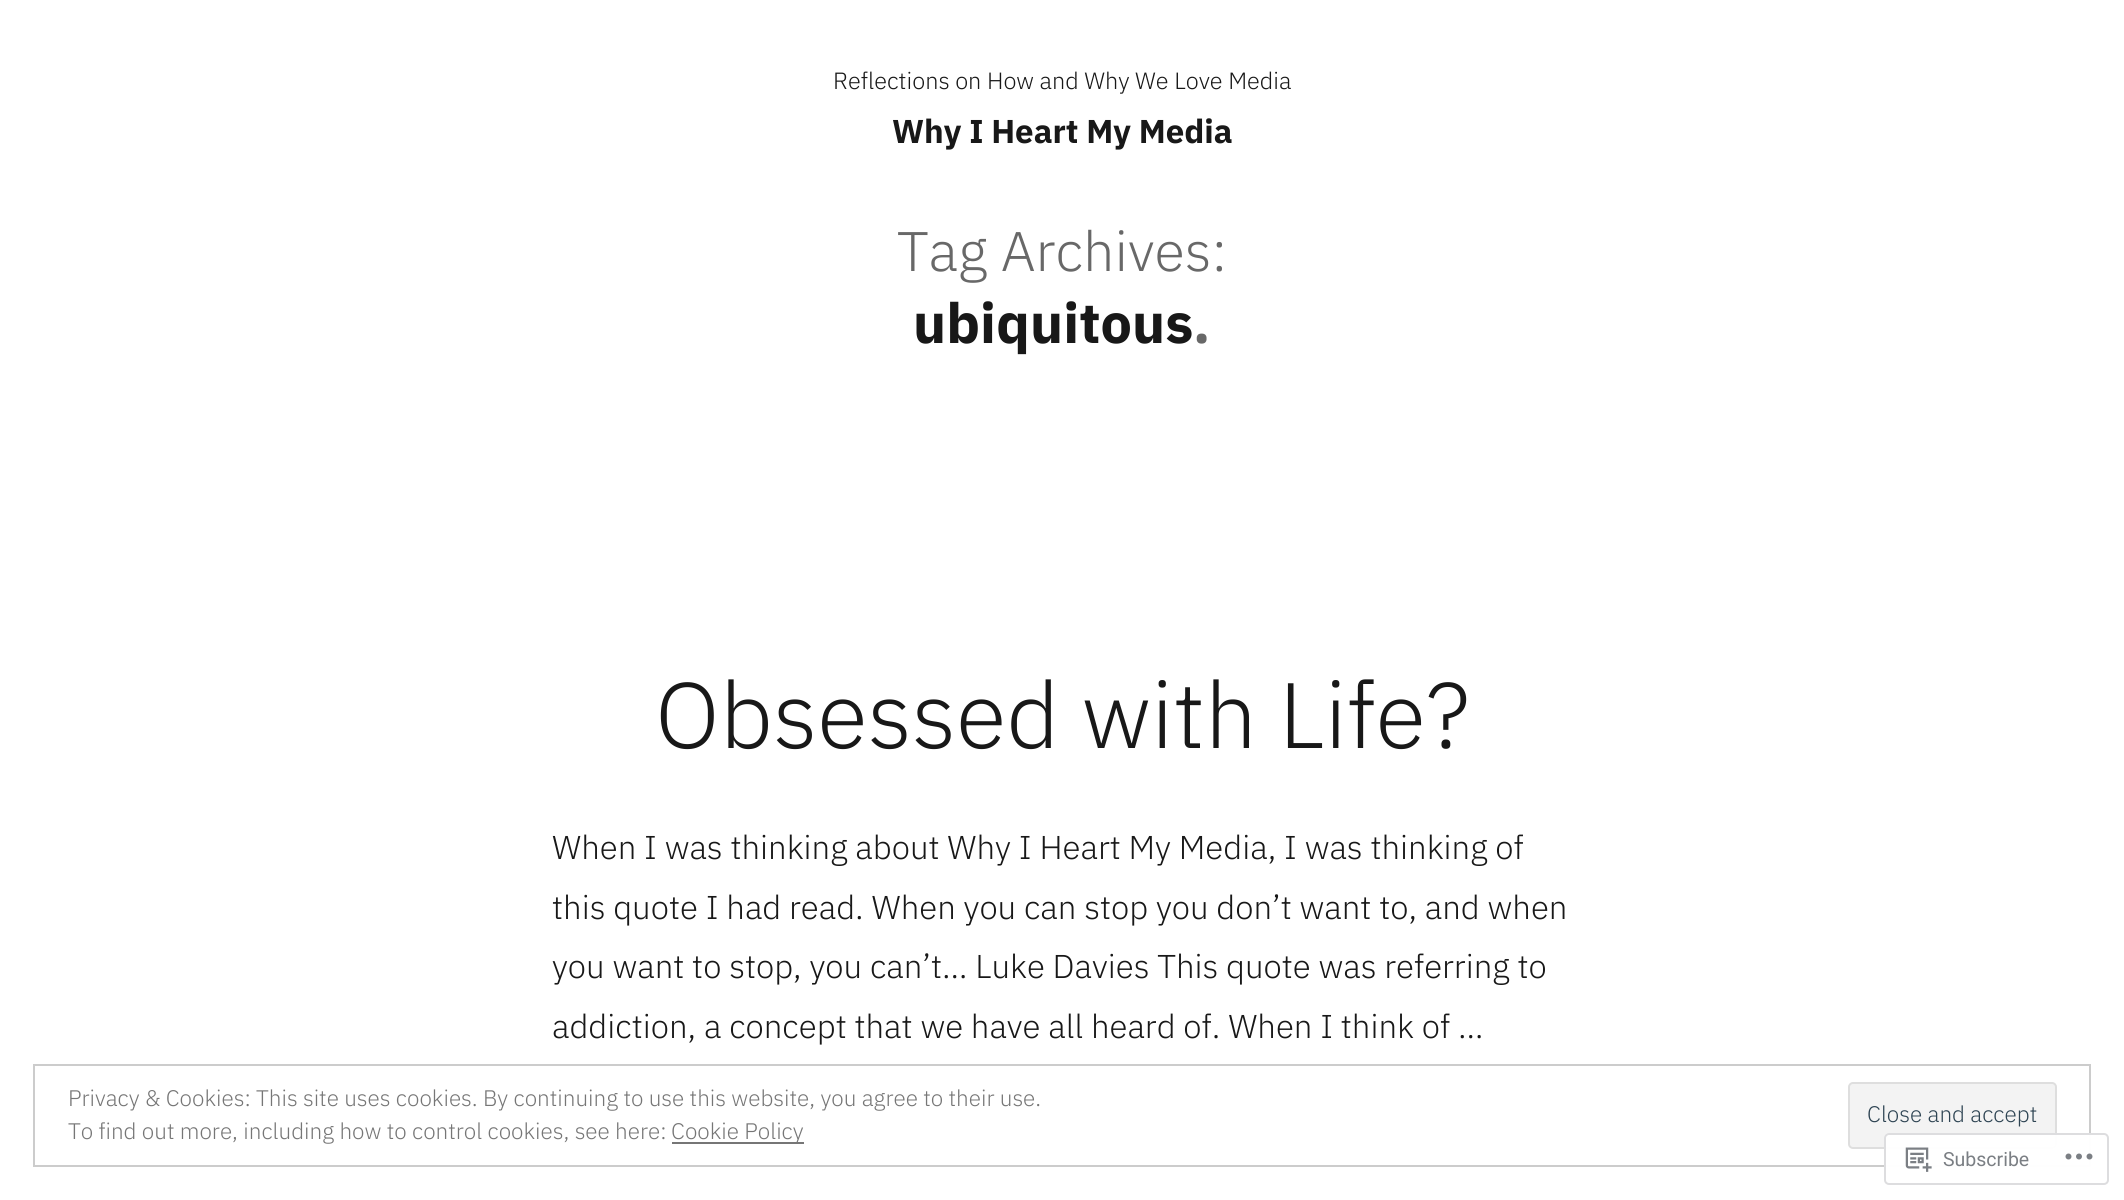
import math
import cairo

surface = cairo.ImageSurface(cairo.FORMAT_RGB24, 2124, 1200)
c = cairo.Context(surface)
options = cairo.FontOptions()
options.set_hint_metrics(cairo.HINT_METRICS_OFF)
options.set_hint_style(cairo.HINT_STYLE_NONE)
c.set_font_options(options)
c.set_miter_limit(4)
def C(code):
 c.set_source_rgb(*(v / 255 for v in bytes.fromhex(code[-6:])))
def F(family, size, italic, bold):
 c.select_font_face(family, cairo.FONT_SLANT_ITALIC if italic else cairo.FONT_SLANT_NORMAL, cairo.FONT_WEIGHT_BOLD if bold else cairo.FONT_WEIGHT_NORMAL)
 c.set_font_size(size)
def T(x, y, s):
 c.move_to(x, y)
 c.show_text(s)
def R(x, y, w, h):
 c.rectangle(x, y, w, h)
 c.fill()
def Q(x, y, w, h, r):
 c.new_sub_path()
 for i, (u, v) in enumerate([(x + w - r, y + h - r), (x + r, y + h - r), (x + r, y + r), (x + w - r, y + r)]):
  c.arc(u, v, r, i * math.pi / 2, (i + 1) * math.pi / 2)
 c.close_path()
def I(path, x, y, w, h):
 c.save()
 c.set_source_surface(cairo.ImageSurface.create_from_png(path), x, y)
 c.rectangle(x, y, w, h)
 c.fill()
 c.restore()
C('ffffff')
c.paint()
F('IBM Plex Sans Light',23.5,0,0)
C('181818')
T(833,89,'Reflections on How and Why We Love Media')
F('IBM Plex Sans',33,0,1)
T(892,143,'Why I Heart My Media')
F('IBM Plex Sans Light',55.75,0,0)
C('686868')
T(897,271,'Tag Archives:')
F('IBM Plex Sans',55.75,0,1)
C('181818')
T(913,343,'ubiquitous')
C('686868')
T(1193,343,'.')
F('IBM Plex Sans Light',92.75,0,0)
C('181818')
T(655,748,'Obsessed with Life?')
F('IBM Plex Sans Light',33,0,0)
T(552,859,'When I was thinking about Why I Heart My Media, I was thinking of')
T(552,919,'this quote I had read. When you can stop you don’t want to, and when')
T(552,978,'you want to stop, you can’t… Luke Davies This quote was referring to')
T(552,1038,'addiction, a concept that we have all heard of. When I think of …')
c.rectangle(34,1065,2056,101)
C('cccccc')
c.stroke()
F('IBM Plex Sans Light',22.5,0,0)
C('767676')
T(68,1106,'Privacy & Cookies: This site uses cookies. By continuing to use this website, you agree to their use.')
C('f3f3f3')
Q(1849,1083,207,65,4)
c.fill_preserve()
C('dedede')
c.stroke()
C('2e4453')
T(1867,1122,'Close and accept')
C('767676')
T(68,1139,'To find out more, including how to control cookies, see here:')
R(672,1142,132,2)
T(671,1139,'Cookie Policy')
c.set_source_rgba(1,1,1,0.98)
Q(1884,1133,225,52,5)
c.fill()
Q(1885,1134,223,50,4)
c.set_source_rgba(0.863,0.863,0.871,0.98)
c.stroke()
I('1.png',1905,1147,27,25)
F('Roboto',19.5,0,0)
C('7b7f84')
T(1943,1166,'Subscribe')
I('2.png',2065,1153,28,7)
surface.write_to_png('o.png')
